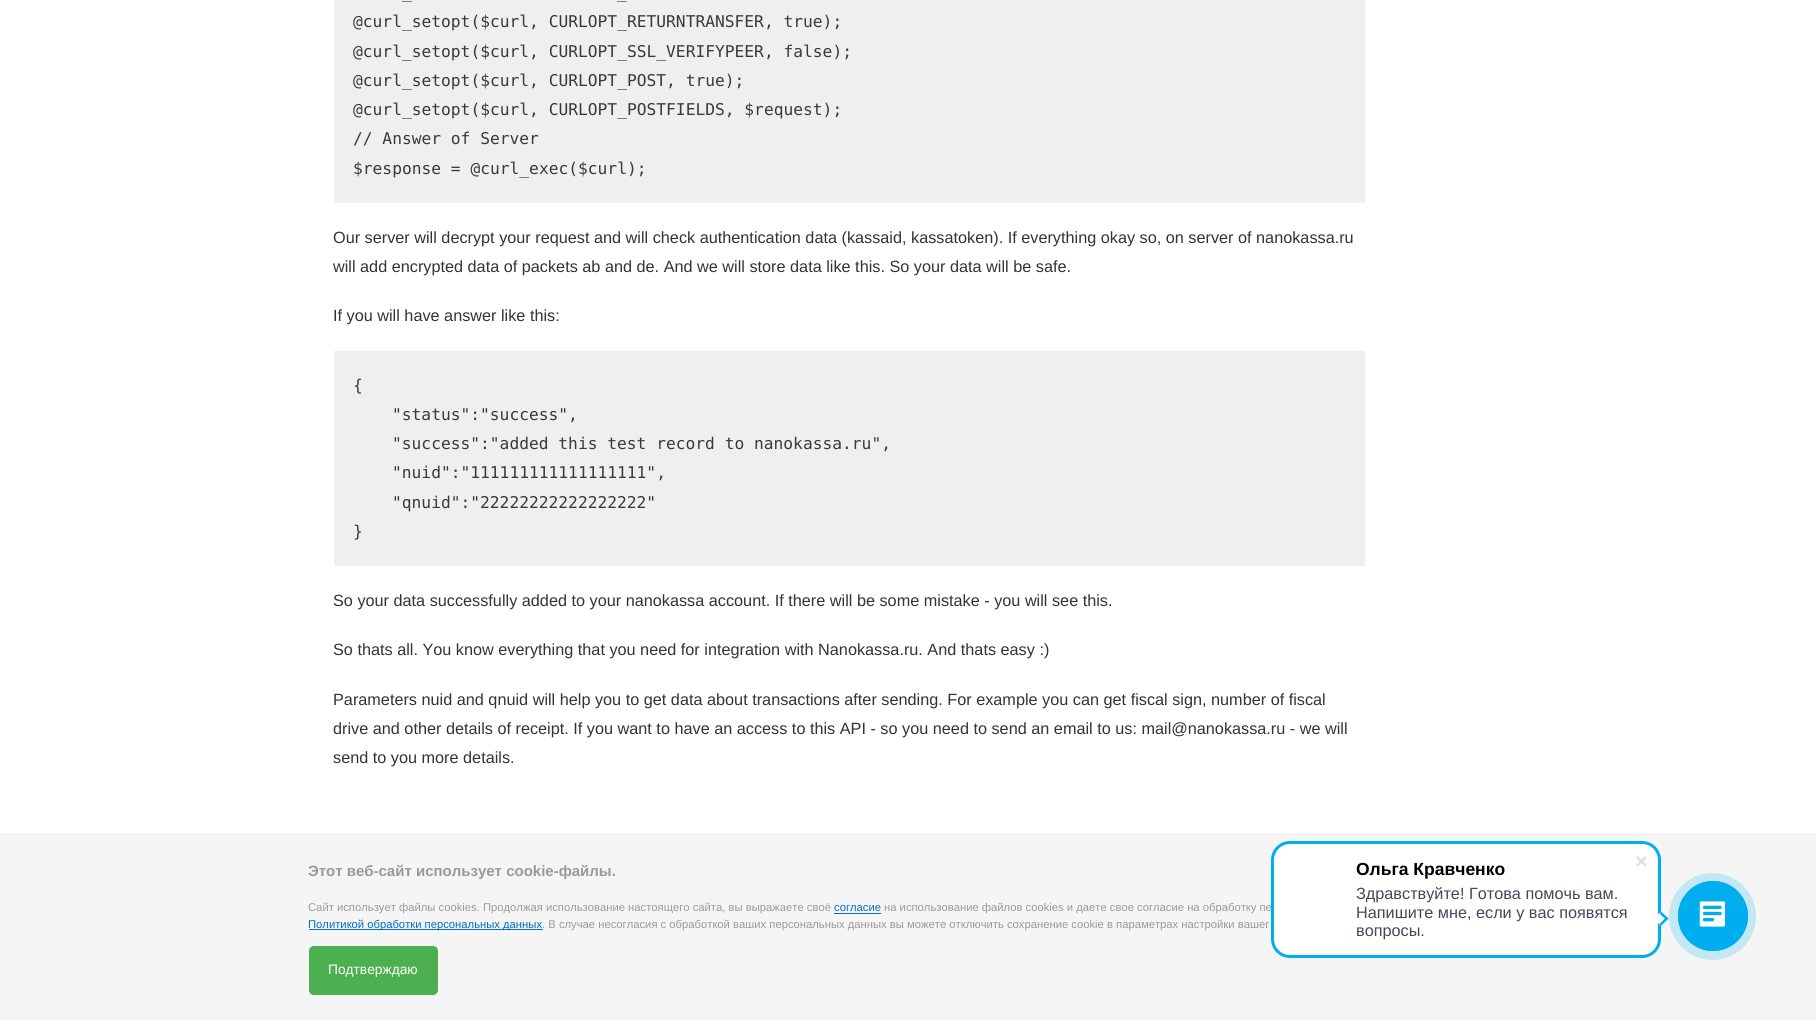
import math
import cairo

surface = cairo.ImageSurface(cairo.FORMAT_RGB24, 1816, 1020)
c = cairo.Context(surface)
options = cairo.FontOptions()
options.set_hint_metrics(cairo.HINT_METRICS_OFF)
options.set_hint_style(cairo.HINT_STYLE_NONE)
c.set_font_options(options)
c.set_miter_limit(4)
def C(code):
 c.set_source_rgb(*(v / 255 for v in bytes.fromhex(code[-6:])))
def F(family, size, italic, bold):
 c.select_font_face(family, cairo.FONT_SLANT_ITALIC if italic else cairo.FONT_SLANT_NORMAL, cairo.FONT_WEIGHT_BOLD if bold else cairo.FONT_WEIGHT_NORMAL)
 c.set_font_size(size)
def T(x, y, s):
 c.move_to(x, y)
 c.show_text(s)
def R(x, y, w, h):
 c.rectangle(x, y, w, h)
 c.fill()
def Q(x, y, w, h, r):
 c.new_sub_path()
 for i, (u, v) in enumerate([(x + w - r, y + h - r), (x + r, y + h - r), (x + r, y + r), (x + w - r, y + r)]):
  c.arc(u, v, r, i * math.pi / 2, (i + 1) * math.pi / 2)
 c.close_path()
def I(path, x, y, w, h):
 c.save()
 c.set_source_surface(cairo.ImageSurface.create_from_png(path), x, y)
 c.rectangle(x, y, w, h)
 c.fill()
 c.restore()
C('ffffff')
c.paint()
C('efefef')
R(334,0,1031,203)
F('DejaVu Sans Mono',16.25,0,0)
C('373a3c')
T(402,-2,'_')
T(617,-2,'_')
T(353,27,'@curl_setopt($curl, CURLOPT_RETURNTRANSFER, true);')
T(353,57,'@curl_setopt($curl, CURLOPT_SSL_VERIFYPEER, false);')
T(353,86,'@curl_setopt($curl, CURLOPT_POST, true);')
T(353,115,'@curl_setopt($curl, CURLOPT_POSTFIELDS, $request);')
T(353,144,'// Answer of Server')
T(353,174,'$response = @curl_exec($curl);')
F('Liberation Sans',16.25,0,0)
C('333333')
T(333,243,'Our server will decrypt your request and will check authentication data (kassaid, kassatoken). If everything okay so, on server of nanokassa.ru')
T(333,272,'will add encrypted data of packets ab and de. And we will store data like this. So your data will be safe.')
T(333,321,'If you will have answer like this:')
C('efefef')
R(334,351,1031,215)
F('DejaVu Sans Mono',16.25,0,0)
C('373a3c')
T(353,391,'{')
T(392,420,'"status":"success",')
T(392,449,'"success":"added this test record to nanokassa.ru",')
T(392,478,'"nuid":"111111111111111111",')
T(392,508,'"qnuid":"22222222222222222"')
T(353,537,'}')
F('Liberation Sans',16.25,0,0)
C('333333')
T(333,606,'So your data successfully added to your nanokassa account. If there will be some mistake - you will see this.')
T(333,655,'So thats all. You know everything that you need for integration with Nanokassa.ru. And thats easy :)')
T(333,705,'Parameters nuid and qnuid will help you to get data about transactions after sending. For example you can get fiscal sign, number of fiscal')
T(333,734,'drive and other details of receipt. If you want to have an access to this API - so you need to send an email to us: mail@nanokassa.ru - we will')
T(333,763,'send to you more details.')
C('f5f5f5')
R(0,833,1816,187)
F('Liberation Sans',15,0,1)
C('999999')
T(308,876,'Этот веб-сайт использует cookie-файлы.')
F('Liberation Sans',11.25,0,0)
T(308,911,'Сайт использует файлы cookies. Продолжая использование настоящего сайта, вы выражаете своё')
C('006dca')
T(834,911,'согласие')
R(834,913,47,1)
C('999999')
T(884,911,'на использование файлов cookies и даете свое согласие на обработку пе')
C('006dca')
R(309,929,234,1)
T(308,928,'Политикой обработки персональных данных')
C('999999')
T(542,928,'. В случае несогласия с обработкой ваших персональных данных вы можете отключить сохранение cookie в параметрах настройки вашег')
C('4caf50')
Q(309,946,129,49,5)
c.fill()
F('Liberation Sans',13.75,0,0)
C('ffffff')
T(328,974,'Подтверждаю')
Q(1272.5,842.5,387,114,17.5)
c.fill_preserve()
C('00aeef')
c.set_line_width(3)
c.stroke()
F('Liberation Sans',17.5,0,1)
C('000000')
T(1356,875,'Ольга Кравченко')
F('Liberation Sans',16.25,0,0)
C('424956')
T(1356,899,'Здравствуйте! Готова помочь вам.')
T(1356,918,'Напишите мне, если у вас появятся')
T(1356,936,'вопросы.')
I('1.png',1636,856,11,11)
C('ffffff')
c.new_path()
c.move_to(1654,918.5)
c.line_to(1661,911.5)
c.line_to(1668.5,918.5)
c.line_to(1661,926)
c.close_path()
c.fill()
C('00aeef')
c.new_path()
c.move_to(1659.5,913.5)
c.line_to(1661,911.5)
c.line_to(1668.5,918.5)
c.line_to(1666.5,920.5)
c.close_path()
c.fill()
c.new_path()
c.move_to(1659.5,924)
c.line_to(1666.5,917)
c.line_to(1668.5,918.5)
c.line_to(1661,926)
c.close_path()
c.fill()
C('c4e7f4')
c.arc(1712.5,916.5,43.5,0,2 * math.pi)
c.fill()
c.arc(1713,916,34.5,0,2 * math.pi)
C('00aeef')
c.set_line_width(1)
c.stroke()
c.arc(1713,916,35,0,2 * math.pi)
c.fill()
I('2.png',1699,901,26,26)
surface.write_to_png('o.png')
